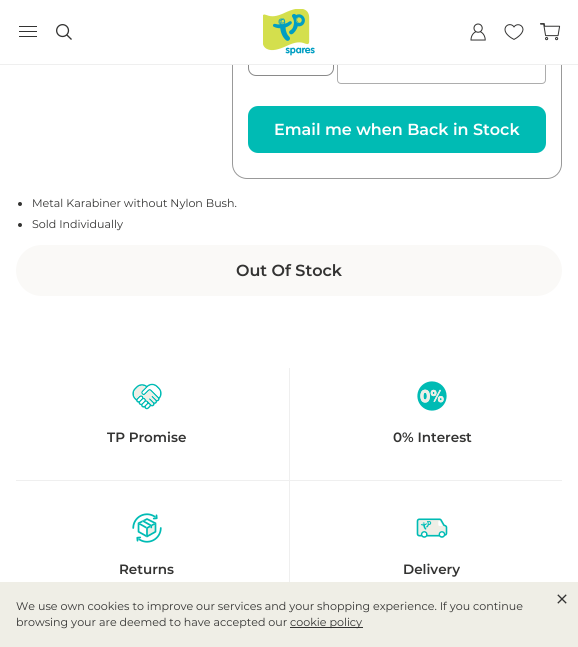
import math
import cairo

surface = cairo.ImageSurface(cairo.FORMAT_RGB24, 578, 647)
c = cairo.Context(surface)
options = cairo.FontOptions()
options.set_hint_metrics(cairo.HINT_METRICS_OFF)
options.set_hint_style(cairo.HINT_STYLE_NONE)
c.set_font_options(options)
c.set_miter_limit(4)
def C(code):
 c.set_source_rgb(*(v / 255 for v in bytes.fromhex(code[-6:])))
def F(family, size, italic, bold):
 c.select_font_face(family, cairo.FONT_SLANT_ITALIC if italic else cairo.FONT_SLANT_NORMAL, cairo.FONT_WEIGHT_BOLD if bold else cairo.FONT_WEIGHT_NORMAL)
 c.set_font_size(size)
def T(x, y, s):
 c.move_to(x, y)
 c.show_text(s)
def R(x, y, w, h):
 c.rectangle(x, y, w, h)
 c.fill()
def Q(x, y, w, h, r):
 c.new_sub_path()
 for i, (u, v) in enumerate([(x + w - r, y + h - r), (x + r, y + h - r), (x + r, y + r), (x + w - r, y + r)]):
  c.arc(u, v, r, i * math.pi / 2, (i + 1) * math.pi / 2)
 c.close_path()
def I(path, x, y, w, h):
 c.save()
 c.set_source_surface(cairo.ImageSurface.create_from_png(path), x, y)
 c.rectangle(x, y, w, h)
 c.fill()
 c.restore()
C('ffffff')
c.paint()
Q(232.5,-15.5,329,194,14.5)
C('999999')
c.set_line_width(1)
c.stroke()
Q(248.5,44.5,85,31,7.5)
C('8a8a8a')
c.stroke()
Q(337.5,36.5,208,47,3.5)
C('adadad')
c.stroke()
C('ffffff')
R(232,0,330,64)
C('efefef')
R(0,64,578,1)
C('333332')
R(19,31,18,1)
R(19,26,18,1)
R(19,36,18,1)
I('1.png',56,24,16,16)
I('2.png',263,9,52,47)
I('3.png',470,23,16,18)
I('4.png',504,24,20,16)
I('5.png',540,23,21,18)
C('00bbb4')
Q(248,106,298,47,10)
c.fill()
F('Montserrat SemiBold',16,0,0)
C('ffffff')
T(274,135,'Email me when Back in Stock')
C('333332')
c.new_path()
c.arc(20,204,2,0,2 * math.pi)
c.fill()
F('Montserrat',11.1,0,0)
T(32,207,'Metal Karabiner without Nylon Bush.')
c.new_path()
c.arc(20,225,2,0,2 * math.pi)
c.fill()
T(32,228,'Sold Individually')
C('faf9f7')
Q(16,245,546,51,25.5)
c.fill()
F('Montserrat SemiBold',16,0,0)
C('333332')
T(236,276,'Out Of Stock')
I('6.png',132,383,30,27)
F('Montserrat SemiBold',13.5,0,0)
T(107,442,'TP Promise')
C('efefef')
R(289,368,1,214)
I('7.png',417,381,30,30)
C('333332')
T(393,442,'0% Interest')
C('efefef')
R(16,480,546,1)
I('8.png',132,513,30,30)
C('333332')
T(119,574,'Returns')
I('9.png',416,518,32,20)
T(403,574,'Delivery')
C('efeee6')
R(0,582,578,65)
I('10.png',557,594,10,10)
F('Montserrat',11.1,0,0)
C('333332')
T(16,610,'We use own cookies to improve our services and your shopping experience. If you continue')
T(16,626,'browsing your are deemed to have accepted our')
R(290,627,73,1)
T(290,626,'cookie policy')
surface.write_to_png('o.png')
